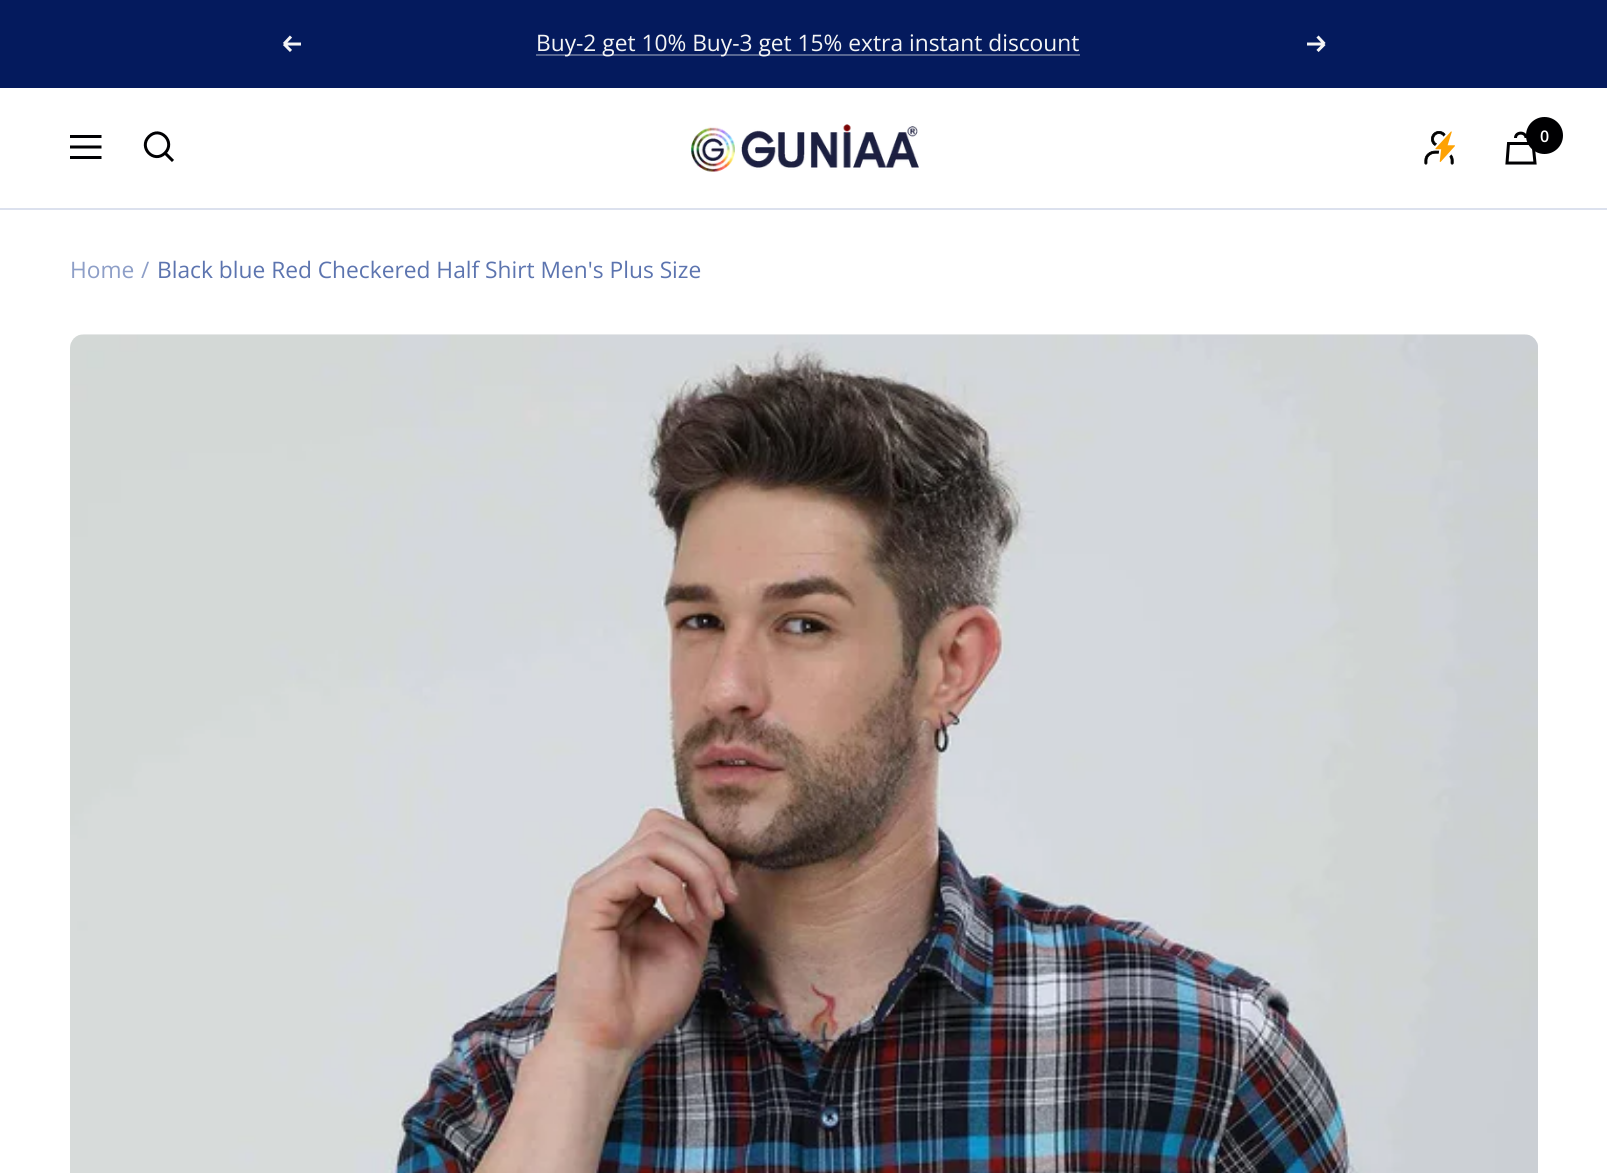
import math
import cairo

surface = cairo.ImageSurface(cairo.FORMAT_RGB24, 1607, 1173)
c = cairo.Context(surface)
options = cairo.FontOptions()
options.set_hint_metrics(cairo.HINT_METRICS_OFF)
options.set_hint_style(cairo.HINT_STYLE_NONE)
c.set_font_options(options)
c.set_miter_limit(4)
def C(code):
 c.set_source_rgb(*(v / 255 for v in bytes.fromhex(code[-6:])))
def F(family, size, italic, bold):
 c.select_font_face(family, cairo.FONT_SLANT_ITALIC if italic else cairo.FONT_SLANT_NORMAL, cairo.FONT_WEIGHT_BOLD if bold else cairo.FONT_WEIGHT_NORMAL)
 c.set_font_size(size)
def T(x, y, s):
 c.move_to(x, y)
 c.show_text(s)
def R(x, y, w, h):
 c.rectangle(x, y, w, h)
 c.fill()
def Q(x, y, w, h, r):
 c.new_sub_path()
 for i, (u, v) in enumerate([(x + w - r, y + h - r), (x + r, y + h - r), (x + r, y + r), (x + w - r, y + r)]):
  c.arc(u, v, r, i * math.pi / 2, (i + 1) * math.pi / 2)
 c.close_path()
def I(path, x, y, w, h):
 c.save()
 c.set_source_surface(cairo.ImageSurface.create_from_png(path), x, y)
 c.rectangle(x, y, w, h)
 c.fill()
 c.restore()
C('ffffff')
c.paint()
C('041a5d')
R(0,0,1607,88)
c.new_path()
c.move_to(301,44)
c.line_to(284,44)
c.move_to(284,44)
c.line_to(291,51)
c.move_to(284,44)
c.line_to(291,36.5)
C('f5f5f5')
c.set_line_width(3)
c.stroke()
C('586792')
R(536,54,544,2)
F('Open Sans',22.75,0,0)
C('f5f5f5')
T(536,51,'Buy-2 get 10% Buy-3 get 15% extra instant discount')
c.new_path()
c.move_to(1307,44)
c.line_to(1324.5,44)
c.move_to(1324.5,44)
c.line_to(1317.5,51)
c.move_to(1324.5,44)
c.line_to(1317.5,36.5)
c.stroke()
C('dce1ee')
R(0,208,1607,2)
c.new_path()
c.move_to(70,136.5)
c.line_to(101.5,136.5)
c.move_to(70,157.5)
c.line_to(101.5,157.5)
c.close_path()
c.move_to(70,147)
c.line_to(101.5,147)
c.close_path()
C('000002')
c.stroke()
c.new_path()
c.move_to(165,153)
c.curve_to(176,142,160,125.5,149,136.5)
c.curve_to(138,147.5,154,164,165,153)
c.close_path()
c.move_to(165,153)
c.line_to(173,161)
c.stroke()
I('1.png',691,124,228,48)
I('2.png',1424,131,31,34)
c.new_path()
c.move_to(1508.5,143.5)
c.line_to(1533,143.5)
c.line_to(1535,163)
c.line_to(1507,163)
c.close_path()
c.move_to(1526,138)
c.curve_to(1526,131.5,1515.5,131.5,1515.5,138)
c.stroke()
c.arc(1544.5,135.5,18.5,0,2 * math.pi)
c.fill()
F('Open Sans SemiBold',16,0,0)
C('ffffff')
T(1540,142,'0')
F('Open Sans',22.75,0,0)
C('8d9ec7')
T(70,278,'Home')
T(141,278,'/')
C('5c74af')
T(157,278,'Black blue Red Checkered Half Shirt Men\'s Plus Size')
C('f5f5f5')
Q(70,334,1468,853,14)
c.fill()
I('3.png',70,334,1468,839)
surface.write_to_png('o.png')
